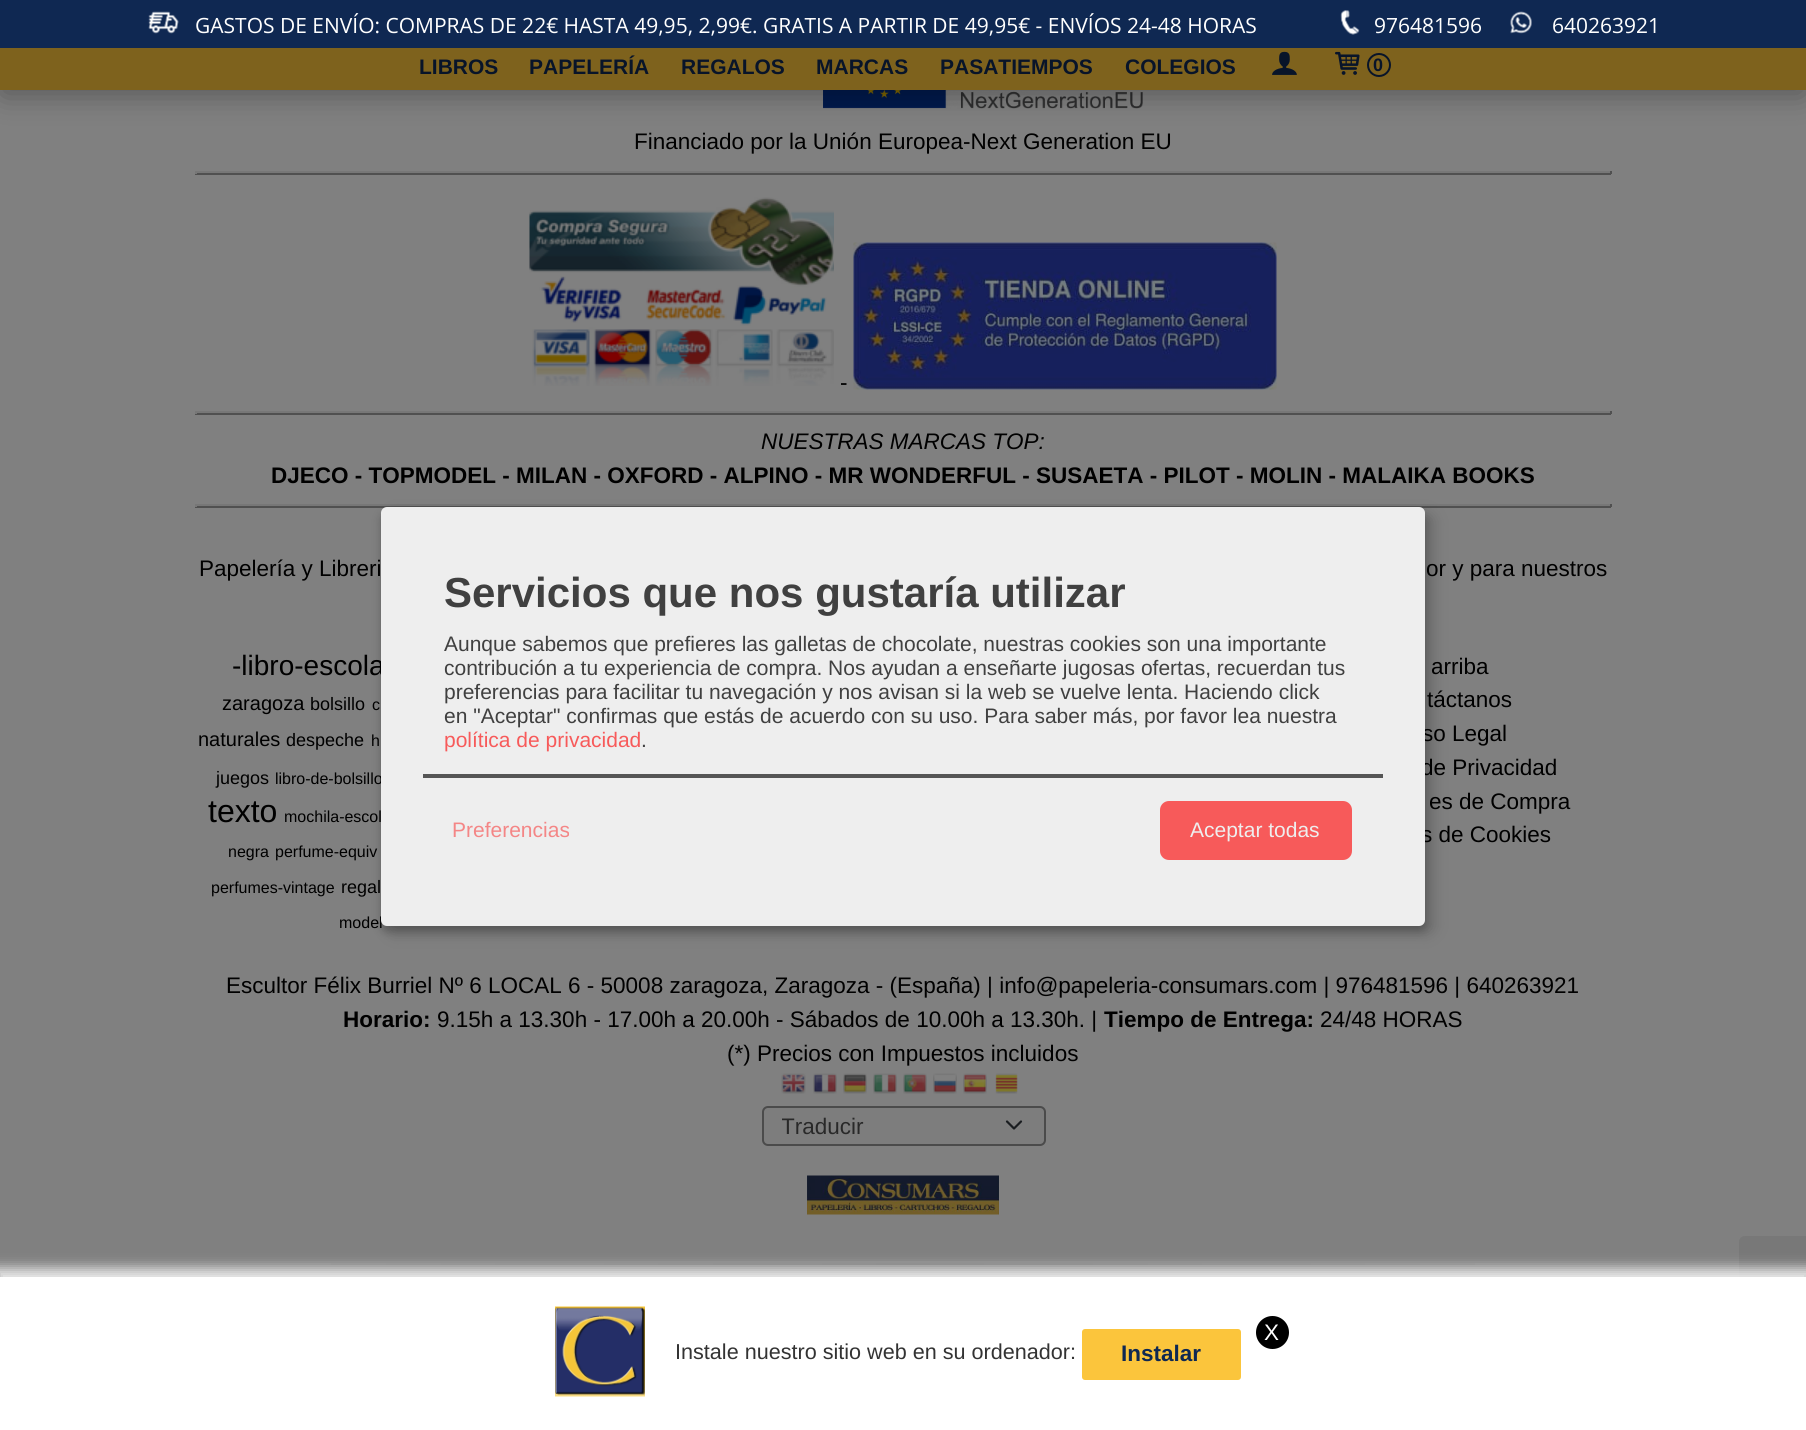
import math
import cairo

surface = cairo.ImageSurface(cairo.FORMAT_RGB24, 1806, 1430)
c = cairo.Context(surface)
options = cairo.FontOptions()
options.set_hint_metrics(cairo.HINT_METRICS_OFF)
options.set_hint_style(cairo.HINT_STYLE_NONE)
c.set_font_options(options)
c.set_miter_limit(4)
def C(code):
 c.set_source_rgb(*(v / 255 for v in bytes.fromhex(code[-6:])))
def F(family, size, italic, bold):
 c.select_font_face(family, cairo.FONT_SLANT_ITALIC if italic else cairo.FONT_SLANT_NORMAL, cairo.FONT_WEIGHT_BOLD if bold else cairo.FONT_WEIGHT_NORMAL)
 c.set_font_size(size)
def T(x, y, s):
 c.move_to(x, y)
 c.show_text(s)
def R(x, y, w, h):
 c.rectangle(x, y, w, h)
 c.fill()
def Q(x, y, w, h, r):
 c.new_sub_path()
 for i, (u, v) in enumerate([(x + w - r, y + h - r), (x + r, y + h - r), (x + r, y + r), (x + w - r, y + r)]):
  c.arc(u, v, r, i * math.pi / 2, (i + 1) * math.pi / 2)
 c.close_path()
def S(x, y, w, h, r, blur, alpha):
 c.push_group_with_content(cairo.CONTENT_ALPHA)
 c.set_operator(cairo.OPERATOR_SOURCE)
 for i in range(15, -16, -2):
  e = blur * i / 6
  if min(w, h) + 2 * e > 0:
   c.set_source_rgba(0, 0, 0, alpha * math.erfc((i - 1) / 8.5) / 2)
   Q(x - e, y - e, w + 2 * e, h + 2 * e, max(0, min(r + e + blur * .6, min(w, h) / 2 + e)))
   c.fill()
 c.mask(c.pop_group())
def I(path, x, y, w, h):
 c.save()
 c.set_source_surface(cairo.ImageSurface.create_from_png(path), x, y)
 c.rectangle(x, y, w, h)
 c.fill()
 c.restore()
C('808080')
c.paint()
I('6.png',823,90,320,19)
C('000000')
S(3,53,1800,40,0,15,.35)
C('0f2852')
R(0,0,1806,48)
I('1.png',148,11,31,23)
F('Open Sans',21,0,0)
C('ffffff')
T(195,33,'GASTOS DE ENVÍO: COMPRAS DE 22€ HASTA 49,95, 2,99€. GRATIS A PARTIR DE 49,95€ - ENVÍOS 24-48 HORAS')
I('2.png',1340,10,20,25)
T(1374,33,'976481596')
I('3.png',1510,11,22,23)
T(1552,33,'640263921')
C('7e621d')
R(0,48,1806,42)
F('Liberation Sans',21,0,1)
C('081429')
T(419,74,'LIBROS')
T(529,74,'PAPELERÍA')
T(681,74,'REGALOS')
T(816,74,'MARCAS')
T(940,74,'PASATIEMPOS')
T(1125,74,'COLEGIOS')
I('4.png',1272,51,25,24)
I('5.png',1335,51,25,24)
c.arc(1379,65,11,0,2 * math.pi)
c.stroke()
F('Liberation Sans',18,0,1)
T(1373,71,'0')
F('Liberation Sans',22.5,0,0)
C('000000')
T(634,149,'Financiado por la Unión Europea-Next Generation EU')
C('777777')
R(195,171,1416,2)
C('505050')
R(1610,171,2,3)
R(195,173,1416,2)
C('777777')
R(195,171,2,3)
I('7.png',529,197,305,189)
C('000000')
T(840,390,'-')
I('8.png',853,242,424,148)
C('777777')
R(195,411,1416,2)
C('505050')
R(1610,411,2,3)
R(195,413,1416,2)
C('777777')
R(195,411,2,3)
F('Liberation Sans',22.5,1,0)
C('000000')
T(761,449,'NUESTRAS MARCAS TOP:')
F('Liberation Sans',22.5,0,1)
T(271,483,'DJECO - TOPMODEL - MILAN - OXFORD - ALPINO - MR WONDERFUL - SUSAETA - PILOT - MOLIN - MALAIKA BOOKS')
C('777777')
R(195,504,1416,2)
C('505050')
R(1610,504,2,3)
R(195,506,1416,2)
C('777777')
R(195,504,2,3)
F('Liberation Sans',22.5,0,0)
C('000000')
T(199,576,'Papelería y Libreri')
T(1426,576,'or y para nuestros')
F('Liberation Sans',28,0,0)
T(232,675,'-libro-escola')
F('Liberation Sans',20,0,0)
T(222,710,'zaragoza')
F('Liberation Sans',18,0,0)
T(310,710,'bolsillo')
F('Liberation Sans',16,0,0)
T(372,710,'c')
F('Liberation Sans',20,0,0)
T(198,746,'naturales')
F('Liberation Sans',18,0,0)
T(286,746,'despeche')
F('Liberation Sans',16,0,0)
T(371,746,'h')
F('Liberation Sans',18,0,0)
T(216,784,'juegos')
F('Liberation Sans',16,0,0)
T(275,784,'libro-de-bolsillo')
F('Liberation Sans',32,0,0)
T(208,822,'texto')
F('Liberation Sans',16,0,0)
T(284,822,'mochila-escol')
T(228,857,'negra')
T(275,857,'perfume-equiv')
T(211,893,'perfumes-vintage')
F('Liberation Sans',18,0,0)
T(341,893,'regal')
F('Liberation Sans',16,0,0)
T(339,928,'model')
F('Liberation Sans',22.5,0,0)
T(1431,674,'arriba')
T(1427,707,'táctanos')
T(1422,741,'so Legal')
T(1421,775,'de Privacidad')
T(1429,809,'es de Compra')
T(1421,842,'s de Cookies')
T(226,993,'Escultor Félix Burriel Nº 6 LOCAL 6 - 50008 zaragoza, Zaragoza - (España) | info@papeleria-consumars.com | 976481596 | 640263921')
F('Liberation Sans',22.5,0,1)
T(343,1027,'Horario:')
F('Liberation Sans',22.5,0,0)
T(437,1027,'9.15h a 13.30h - 17.00h a 20.00h - Sábados de 10.00h a 13.30h. |')
F('Liberation Sans',22.5,0,1)
T(1104,1027,'Tiempo de Entrega:')
F('Liberation Sans',22.5,0,0)
T(1320,1027,'24/48 HORAS')
T(727,1061,'(*) Precios con Impuestos incluidos')
I('9.png',781,1073,25,21)
I('10.png',813,1073,24,21)
I('11.png',843,1073,24,21)
I('12.png',873,1073,24,21)
I('13.png',903,1073,24,21)
I('14.png',933,1073,24,21)
I('15.png',963,1073,24,21)
I('16.png',995,1073,23,21)
C('7d7d7d')
Q(762,1106,284,40,6)
c.fill()
c.new_path()
c.move_to(1007,1121.5)
c.line_to(1014,1128.5)
c.line_to(1021,1121.5)
C('1a1d20')
c.set_line_width(2.2)
c.set_line_cap(cairo.LINE_CAP_ROUND)
c.set_line_join(cairo.LINE_JOIN_ROUND)
c.stroke()
Q(763,1107,282,38,5)
C('4b4b4b')
c.set_line_width(2)
c.set_line_cap(cairo.LINE_CAP_BUTT)
c.set_line_join(cairo.LINE_JOIN_MITER)
c.stroke()
c.save()
c.rectangle(782,1113,208,26)
c.clip()
C('292929')
T(781,1134,'Traducir')
c.restore()
I('17.png',807,1175,192,40)
gradient = cairo.LinearGradient(195,1264,1611,1264)
gradient.add_color_stop_rgba(0,0.502,0.502,0.502,1)
gradient.add_color_stop_rgba(.5,0.451,0.451,0.451,1)
gradient.add_color_stop_rgba(1,0.502,0.502,0.502,1)
c.set_source(gradient)
R(331,1263,1144,2)
C('000000')
S(389,515,1044,418,6,7.5,.19)
S(381,513,1044,419,6,4.5,.2)
C('eeeeee')
Q(381,507,1044,419,6)
c.fill()
C('555555')
R(423,774,960,4)
F('Liberation Sans',42,0,1)
C('404040')
T(444,607,'Servicios que nos gustaría utilizar')
F('Liberation Sans',21,0,0)
T(444,651,'Aunque sabemos que prefieres las galletas de chocolate, nuestras cookies son una importante')
T(444,675,'contribución a tu experiencia de compra. Nos ayudan a enseñarte jugosas ofertas, recuerdan tus')
T(444,699,'preferencias para facilitar tu navegación y nos avisan si la web se vuelve lenta. Haciendo click')
T(444,723,'en "Aceptar" confirmas que estás de acuerdo con su uso. Para saber más, por favor lea nuestra')
C('f75a5a')
T(444,747,'política de privacidad')
C('404040')
T(641,747,'.')
C('f48686')
T(452,837,'Preferencias')
C('f75a5a')
Q(1160,801,192,59,9)
c.fill()
C('eeeeee')
T(1190,837,'Aceptar todas')
C('787878')
c.new_path()
c.move_to(1745,1236)
c.line_to(1806,1236)
c.line_to(1806,1319)
c.line_to(1745,1319)
c.curve_to(1741.5,1319,1739,1316.5,1739,1313)
c.line_to(1739,1242)
c.curve_to(1739,1238.5,1741.5,1236,1745,1236)
c.close_path()
c.fill()
C('e9e9e9')
S(-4,1268,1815,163,0,6,1)
C('ffffff')
R(0,1277,1806,153)
I('18.png',555,1306,90,91)
C('000000')
c.arc(1272.5,1332.5,16.5,0,2 * math.pi)
c.fill()
F('Liberation Sans',22.5,0,0)
C('ffffff')
T(1264,1340,'X')
F('Liberation Sans',21.6,0,0)
C('333333')
T(675,1359,'Instale nuestro sitio web en su ordenador:')
C('fbc53c')
Q(1083.5,1330.5,156,48,1.5)
c.fill_preserve()
c.set_line_width(3)
c.stroke()
F('Liberation Sans',22.5,0,1)
C('0f2852')
T(1121,1361,'Instalar')
surface.write_to_png('o.png')
